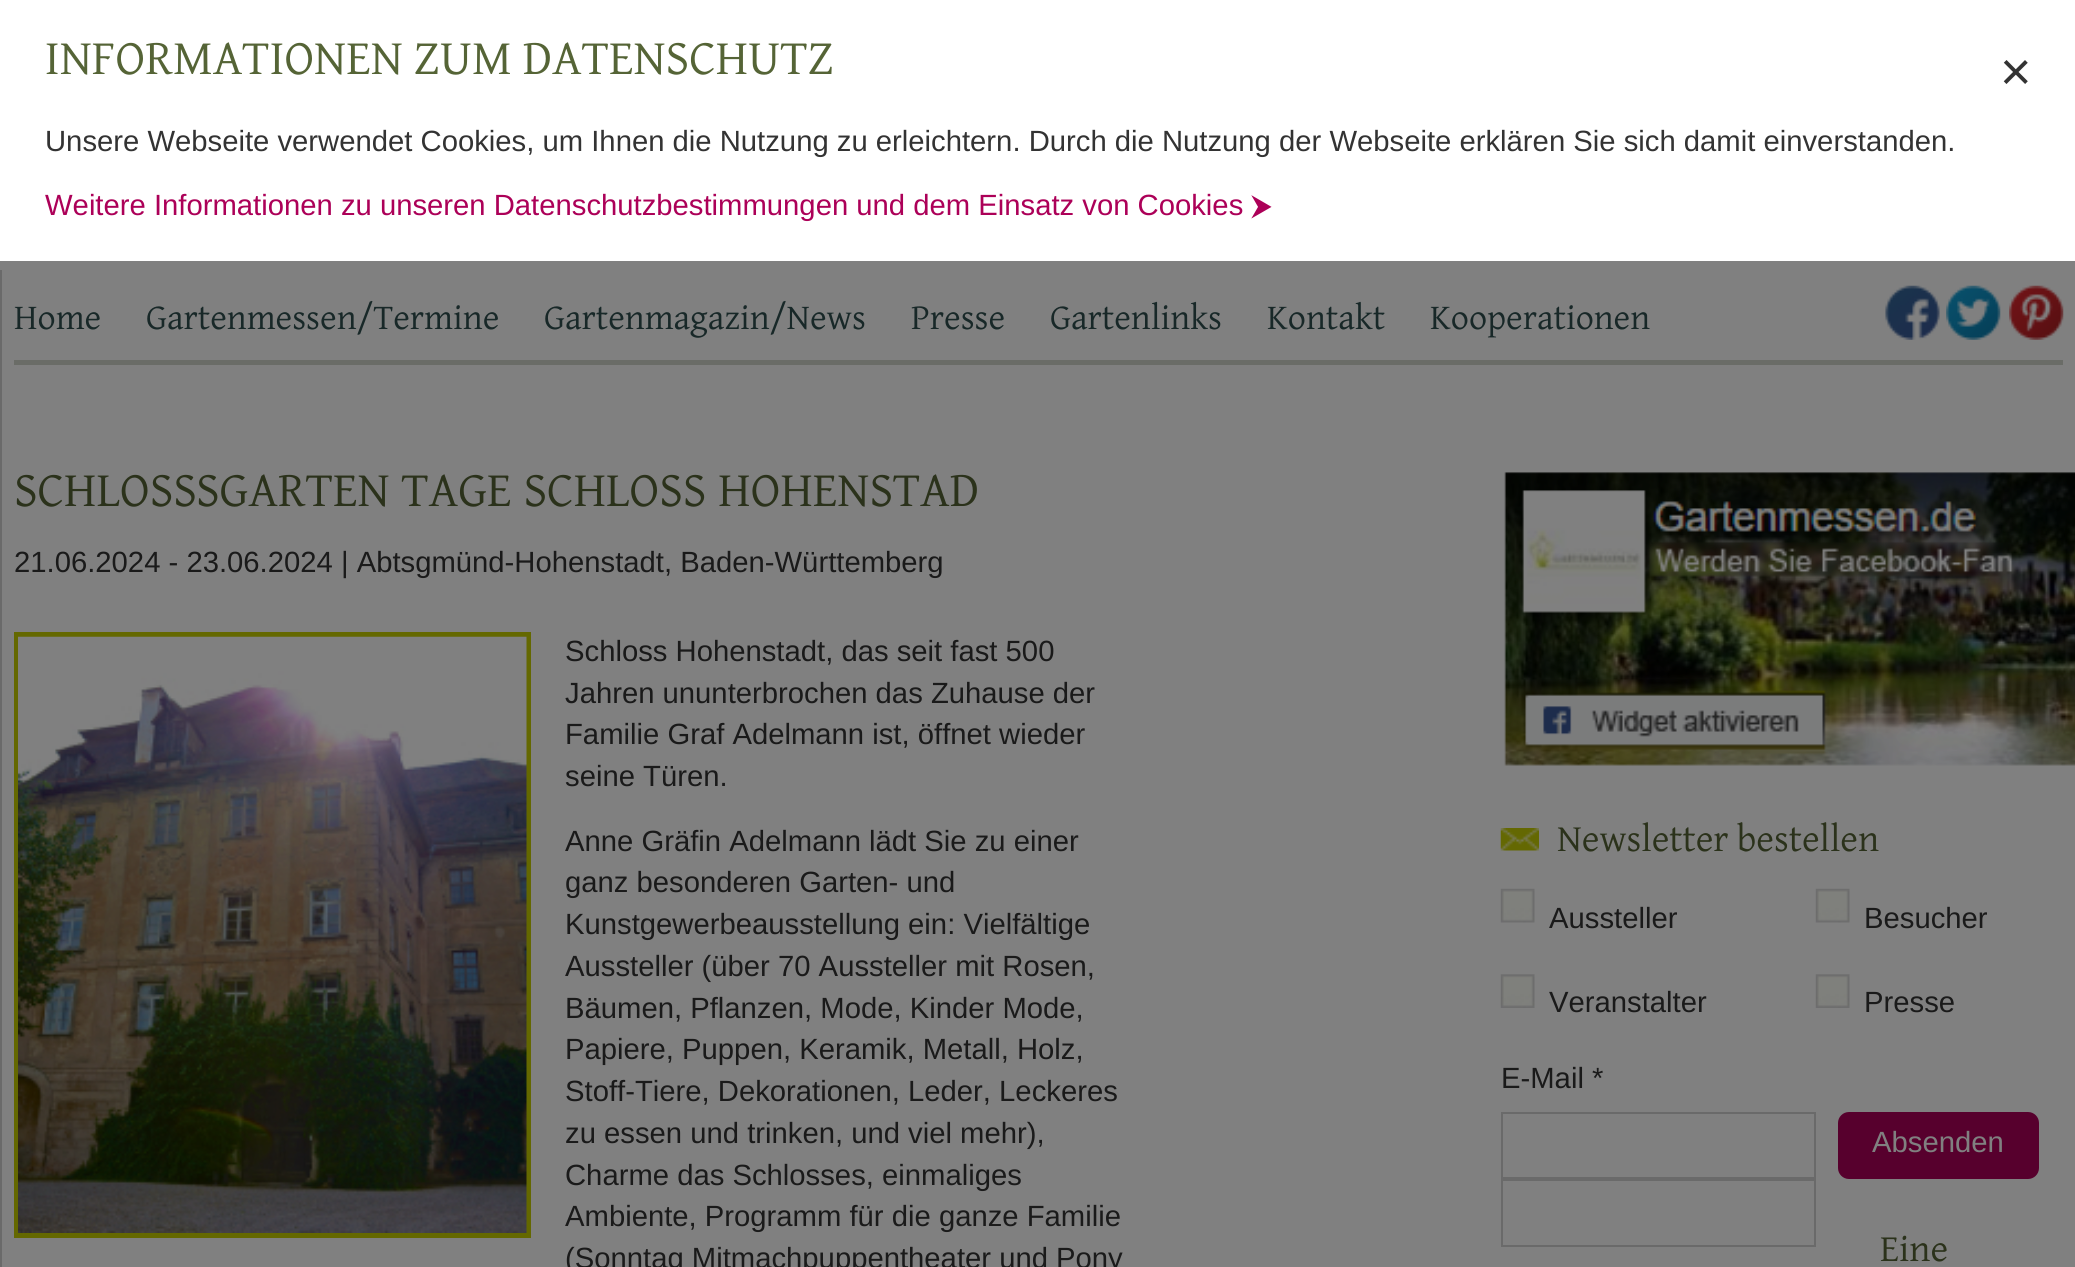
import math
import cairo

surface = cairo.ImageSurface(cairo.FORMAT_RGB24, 2075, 1267)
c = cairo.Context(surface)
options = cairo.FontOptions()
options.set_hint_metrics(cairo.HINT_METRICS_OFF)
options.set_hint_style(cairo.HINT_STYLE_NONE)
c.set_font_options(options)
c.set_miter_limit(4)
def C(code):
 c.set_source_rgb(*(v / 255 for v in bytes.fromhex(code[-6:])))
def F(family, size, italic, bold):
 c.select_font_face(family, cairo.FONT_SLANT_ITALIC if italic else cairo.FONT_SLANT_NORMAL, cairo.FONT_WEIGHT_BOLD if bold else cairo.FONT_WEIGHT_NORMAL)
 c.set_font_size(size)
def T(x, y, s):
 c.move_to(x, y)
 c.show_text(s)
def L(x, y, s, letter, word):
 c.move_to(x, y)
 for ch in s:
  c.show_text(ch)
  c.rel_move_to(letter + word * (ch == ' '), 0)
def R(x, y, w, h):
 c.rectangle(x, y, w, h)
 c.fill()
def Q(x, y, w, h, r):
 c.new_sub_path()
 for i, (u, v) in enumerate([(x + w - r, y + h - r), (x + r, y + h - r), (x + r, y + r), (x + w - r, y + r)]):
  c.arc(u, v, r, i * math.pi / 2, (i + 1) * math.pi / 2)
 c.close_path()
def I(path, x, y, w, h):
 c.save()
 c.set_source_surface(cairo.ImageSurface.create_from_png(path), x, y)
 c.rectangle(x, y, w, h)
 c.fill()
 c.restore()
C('808080')
c.paint()
C('ffffff')
R(0,0,2075,261)
F('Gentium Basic',49.5,0,0)
C('556436')
T(45,74,'INFORMATIONEN ZUM DATENSCHUTZ')
F('Liberation Sans',54,0,0)
C('333333')
T(2000,90,'×')
F('Liberation Sans',29.25,0,0)
T(45,151,'Unsere Webseite verwendet Cookies, um Ihnen die Nutzung zu erleichtern. Durch die Nutzung der Webseite erklären Sie sich damit einverstanden.')
C('ac0058')
T(45,215,'Weitere Informationen zu unseren Datenschutzbestimmungen und dem Einsatz von Cookies')
F('FreeSans',29.25,0,0)
T(1251,215,'⮞')
C('6a6a6a')
R(0,270,2,997)
I('1.png',0,261,703,9)
C('6a6c67')
R(14,360,2049,5)
F('Gentium Basic',36,0,0)
C('182828')
T(14,329,'Home')
T(146,329,'Gartenmessen/Termine')
T(544,329,'Gartenmagazin/News')
T(911,329,'Presse')
T(1050,329,'Gartenlinks')
T(1267,329,'Kontakt')
T(1430,329,'Kooperationen')
I('2.png',1885,285,55,55)
I('3.png',1946,285,55,55)
I('4.png',2009,285,55,55)
F('Gentium Basic',49.5,0,0)
C('2b321b')
T(14,506,'SCHLOSS')
L(196,506,'SGARTEN TAGE SCHLOSS HOHENSTAD',0,1)
F('Liberation Sans',29.25,0,0)
C('1a1a1a')
T(14,572,'21.06.2024 - 23.06.2024 | Abtsgmünd-Hohenstadt, Baden-Württemberg')
c.rectangle(16.5,634.5,512,601)
C('646800')
c.set_line_width(5)
c.stroke()
I('5.png',18,636,509,597)
C('1a1a1a')
T(565,661,'Schloss Hohenstadt, das seit fast 500')
T(565,703,'Jahren ununterbrochen das Zuhause der')
T(565,744,'Familie Graf Adelmann ist, öffnet wieder')
T(565,786,'seine Türen.')
T(565,851,'Anne Gräfin Adelmann lädt Sie zu einer')
T(565,892,'ganz besonderen Garten- und')
T(565,934,'Kunstgewerbeausstellung ein: Vielfältige')
T(565,976,'Aussteller (über 70 Aussteller mit Rosen,')
T(565,1018,'Bäumen, Pflanzen, Mode, Kinder Mode,')
T(565,1059,'Papiere, Puppen, Keramik, Metall, Holz,')
T(565,1101,'Stoff-Tiere, Dekorationen, Leder, Leckeres')
T(565,1143,'zu essen und trinken, und viel mehr),')
T(565,1185,'Charme das Schlosses, einmaliges')
T(565,1226,'Ambiente, Programm für die ganze Familie')
T(565,1268,'(Sonntag Mitmachpuppentheater und Pony')
I('6.png',1504,472,571,294)
I('7.png',1500,828,39,23)
F('Gentium Basic',38.25,0,0)
C('2b321b')
T(1557,851,'Newsletter bestellen')
I('8.png',1500,888,35,35)
F('Liberation Sans',29.25,0,0)
C('1a1a1a')
T(1549,928,'Aussteller')
I('8.png',1815,888,35,35)
T(1864,928,'Besucher')
I('9.png',1500,974,35,34)
T(1549,1012,'Veranstalter')
I('10.png',1815,974,35,34)
T(1864,1012,'Presse')
T(1501,1088,'E-Mail *')
c.rectangle(1502,1113,313,65)
C('6a6a6a')
c.set_line_width(2)
c.stroke()
c.rectangle(1502,1180,313,66)
c.stroke()
C('57002d')
Q(1838,1112,201,67,11)
c.fill()
C('808080')
T(1872,1152,'Absenden')
F('Gentium Basic',38.25,0,0)
C('2b321b')
T(1880,1261,'Eine')
surface.write_to_png('o.png')
